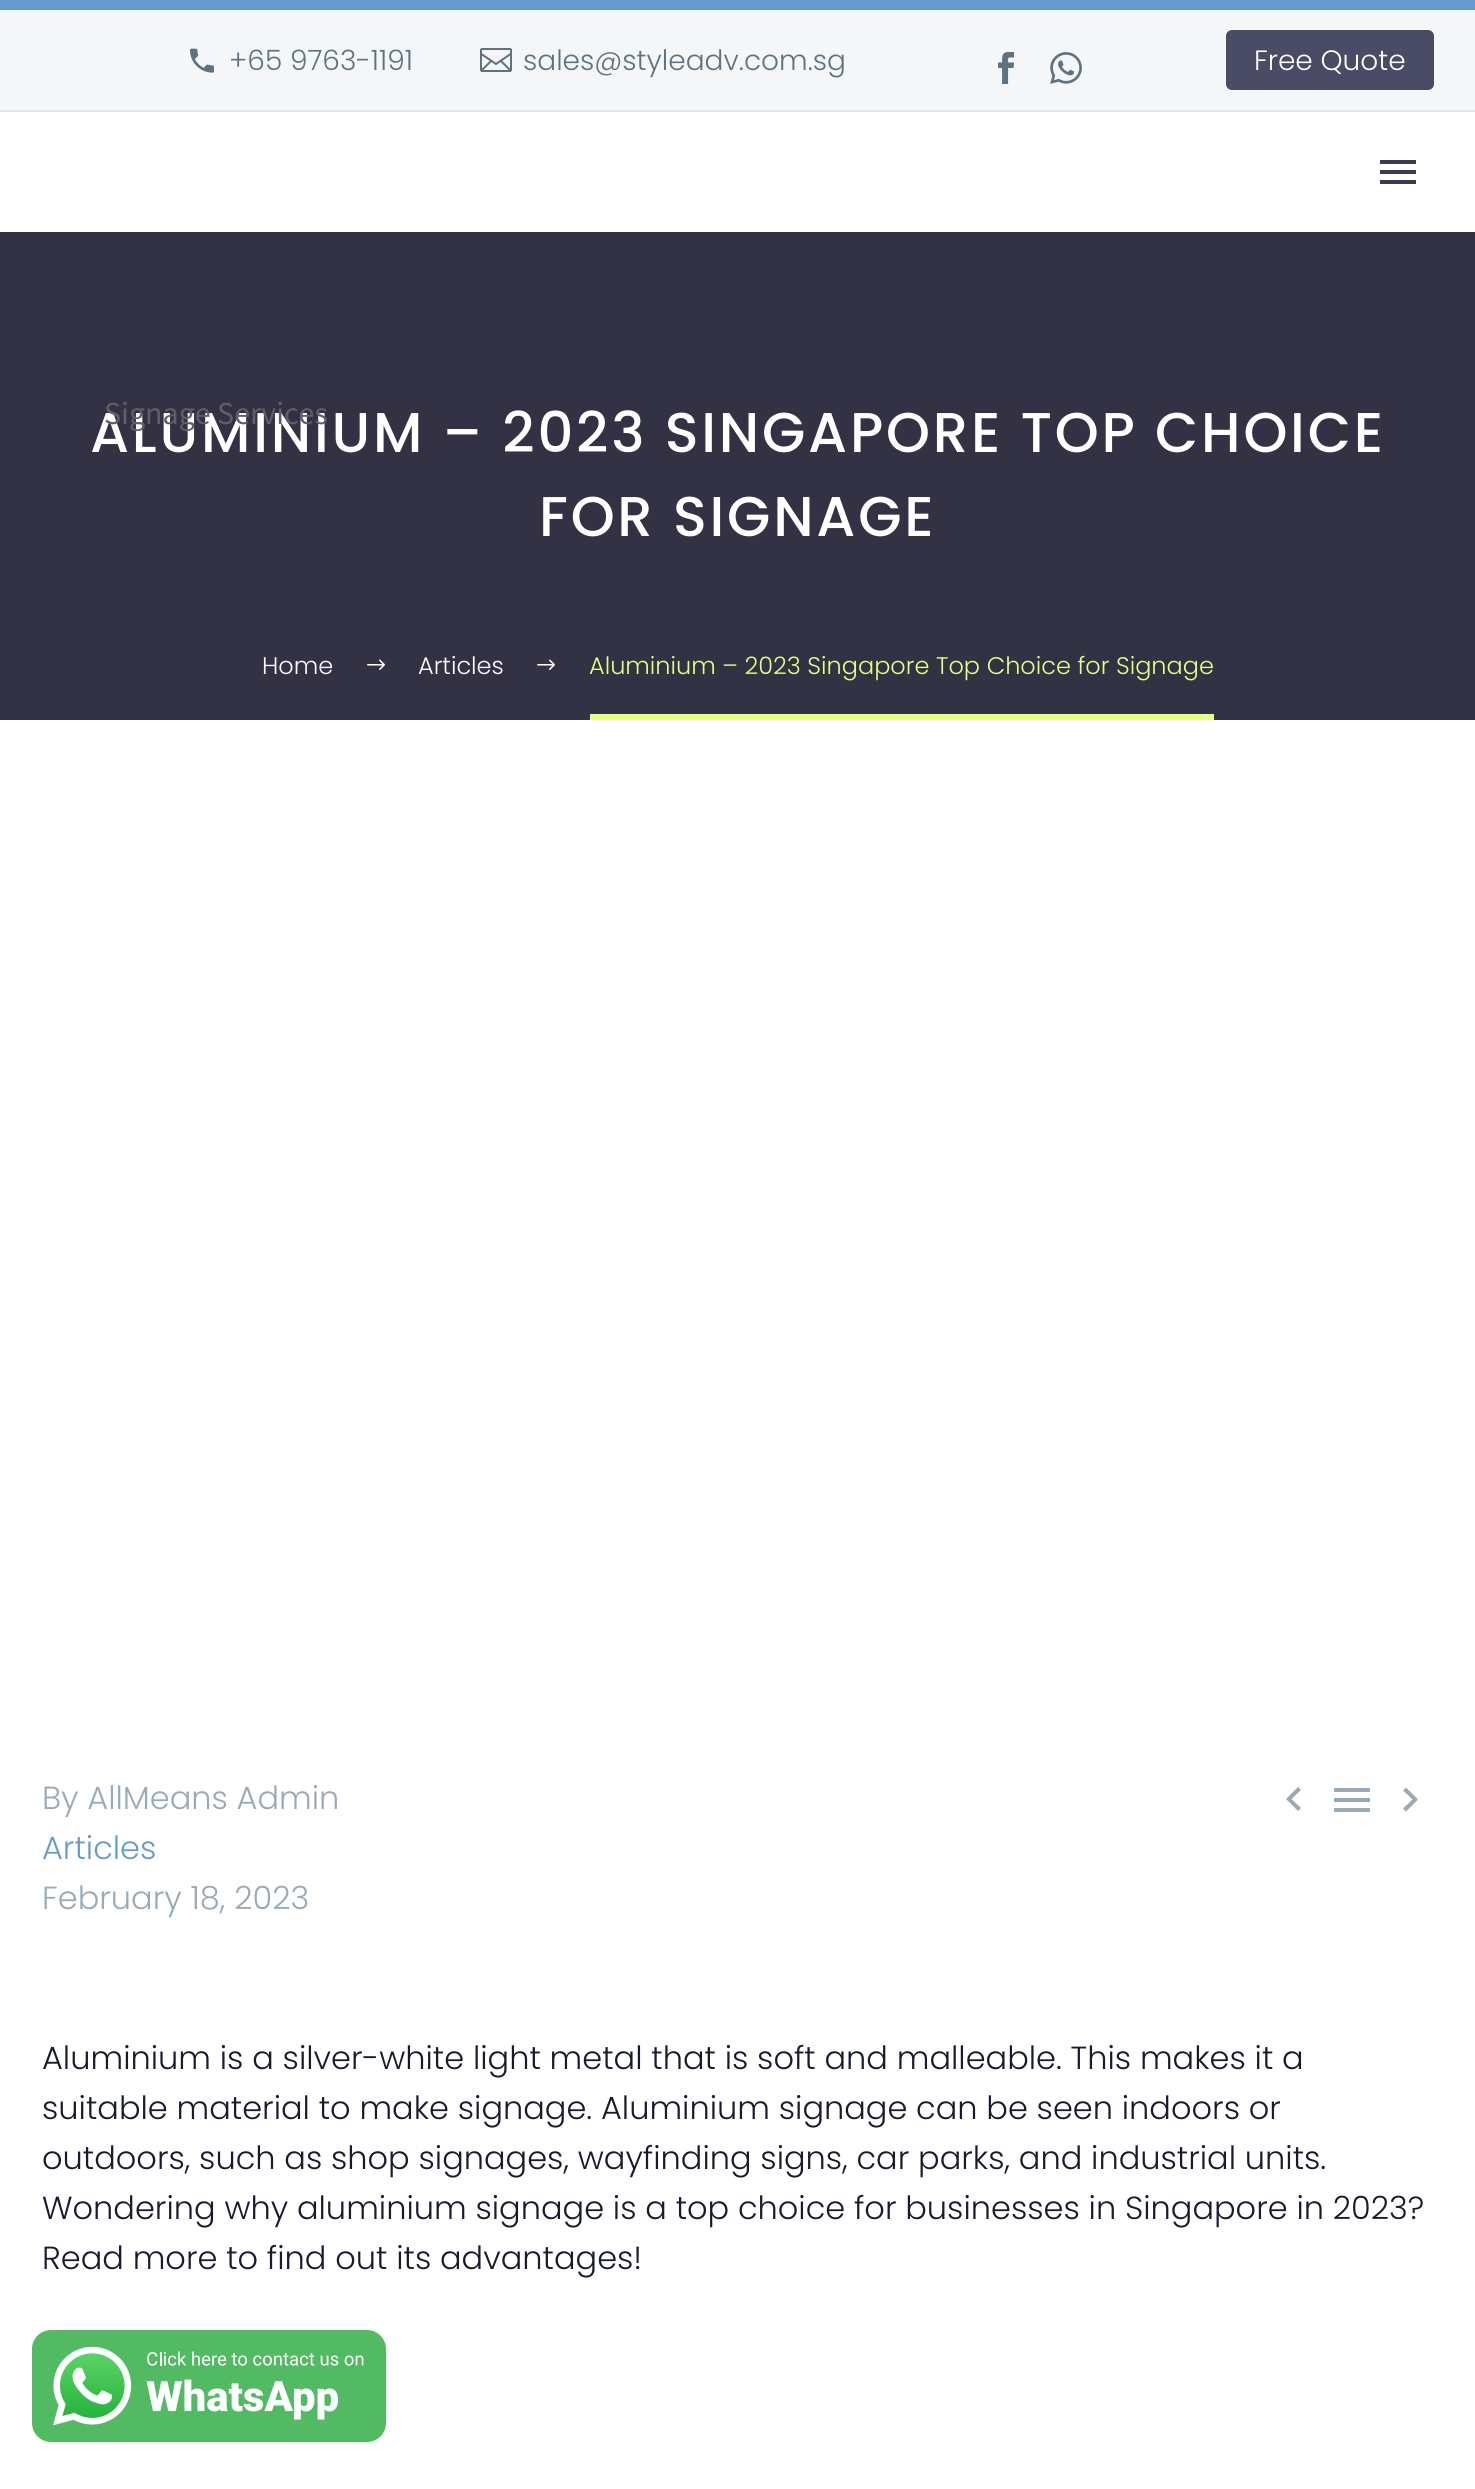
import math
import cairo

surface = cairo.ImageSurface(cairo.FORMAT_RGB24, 1475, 2489)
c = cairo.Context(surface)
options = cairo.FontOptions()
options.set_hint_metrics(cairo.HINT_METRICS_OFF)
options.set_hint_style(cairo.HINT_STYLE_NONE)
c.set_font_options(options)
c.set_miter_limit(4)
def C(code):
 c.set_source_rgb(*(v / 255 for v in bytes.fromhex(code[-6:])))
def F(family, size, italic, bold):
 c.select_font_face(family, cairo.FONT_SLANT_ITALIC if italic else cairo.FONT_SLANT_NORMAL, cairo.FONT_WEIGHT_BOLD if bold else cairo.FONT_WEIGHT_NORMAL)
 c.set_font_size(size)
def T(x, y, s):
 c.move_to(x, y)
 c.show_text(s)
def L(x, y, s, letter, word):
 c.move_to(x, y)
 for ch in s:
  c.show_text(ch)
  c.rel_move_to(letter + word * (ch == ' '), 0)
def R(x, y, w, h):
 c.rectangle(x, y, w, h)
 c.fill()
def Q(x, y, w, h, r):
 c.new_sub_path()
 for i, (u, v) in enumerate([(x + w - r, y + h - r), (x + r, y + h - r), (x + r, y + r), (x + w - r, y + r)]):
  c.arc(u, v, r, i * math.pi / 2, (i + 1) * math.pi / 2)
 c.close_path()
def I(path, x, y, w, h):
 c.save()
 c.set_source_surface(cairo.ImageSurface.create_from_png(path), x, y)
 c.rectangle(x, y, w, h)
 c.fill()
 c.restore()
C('ffffff')
c.paint()
C('f4f6f7')
R(0,10,1475,100)
C('679bcd')
R(0,0,1475,10)
C('dfe5e8')
R(0,110,1475,2)
I('1.png',190,48,24,25)
F('Poppins Light',28,0,0)
C('5f727f')
T(229,70,'+65 9763-1191')
I('2.png',480,48,32,24)
T(523,70,'sales@styleadv.com.sg')
I('3.png',998,52,17,32)
I('4.png',1050,52,32,32)
C('494c64')
Q(1226,30,208,60,6)
c.fill()
C('ffffff')
T(1254,70,'Free Quote')
C('3c3950')
R(1380,160,36,4)
R(1380,170,36,4)
R(1380,180,36,4)
C('333144')
R(0,232,1475,488)
F('Poppins Medium',56,0,0)
C('ffffff')
L(90,452,'ALUMINIUM – 2023 SINGAPORE TOP CHOICE',2.8,0)
F('Source Sans Pro',32,0,0)
C('5f5e6c')
T(104,424,'Signage Services')
F('Poppins Medium',56,0,0)
C('ffffff')
L(539,536,'FOR SIGNAGE',2.8,0)
F('Poppins Light',24,0,0)
T(262,674,'Home')
I('5.png',367,659,18,11)
T(418,674,'Articles')
I('5.png',537,659,18,11)
C('e7ff89')
R(590,714,624,6)
T(589,674,'Aluminium – 2023 Singapore Top Choice for Signage')
F('Poppins Light',32,0,0)
C('99a9b5')
T(42,1809,'By AllMeans Admin')
C('679bcd')
T(42,1859,'Articles')
C('99a9b5')
T(42,1909,'February 18, 2023')
c.new_path()
c.move_to(1301,1808)
c.line_to(1291.5,1799)
c.line_to(1301,1790)
c.line_to(1298,1787)
c.line_to(1286,1799)
c.line_to(1298,1811)
c.close_path()
c.fill()
c.new_path()
c.move_to(1334,1812)
c.line_to(1370,1812)
c.line_to(1370,1808)
c.line_to(1334,1808)
c.close_path()
c.move_to(1334,1802)
c.line_to(1370,1802)
c.line_to(1370,1798)
c.line_to(1334,1798)
c.close_path()
c.move_to(1334,1788)
c.line_to(1334,1792)
c.line_to(1370,1792)
c.line_to(1370,1788)
c.close_path()
c.fill()
c.new_path()
c.move_to(1403,1808.5)
c.line_to(1412.5,1799.5)
c.line_to(1403,1790.5)
c.line_to(1406,1787.5)
c.line_to(1418,1799.5)
c.line_to(1406,1811.5)
c.close_path()
c.fill()
C('171b2d')
T(42,2069,'Aluminium is a silver-white light metal that is soft and malleable. This makes it a')
T(42,2119,'suitable material to make signage. Aluminium signage can be seen indoors or')
T(42,2169,'outdoors, such as shop signages, wayfinding signs, car parks, and industrial units.')
T(42,2219,'Wondering why aluminium signage is a top choice for businesses in Singapore in 2023?')
T(42,2269,'Read more to find out its advantages!')
I('6.png',32,2330,354,112)
surface.write_to_png('o.png')
